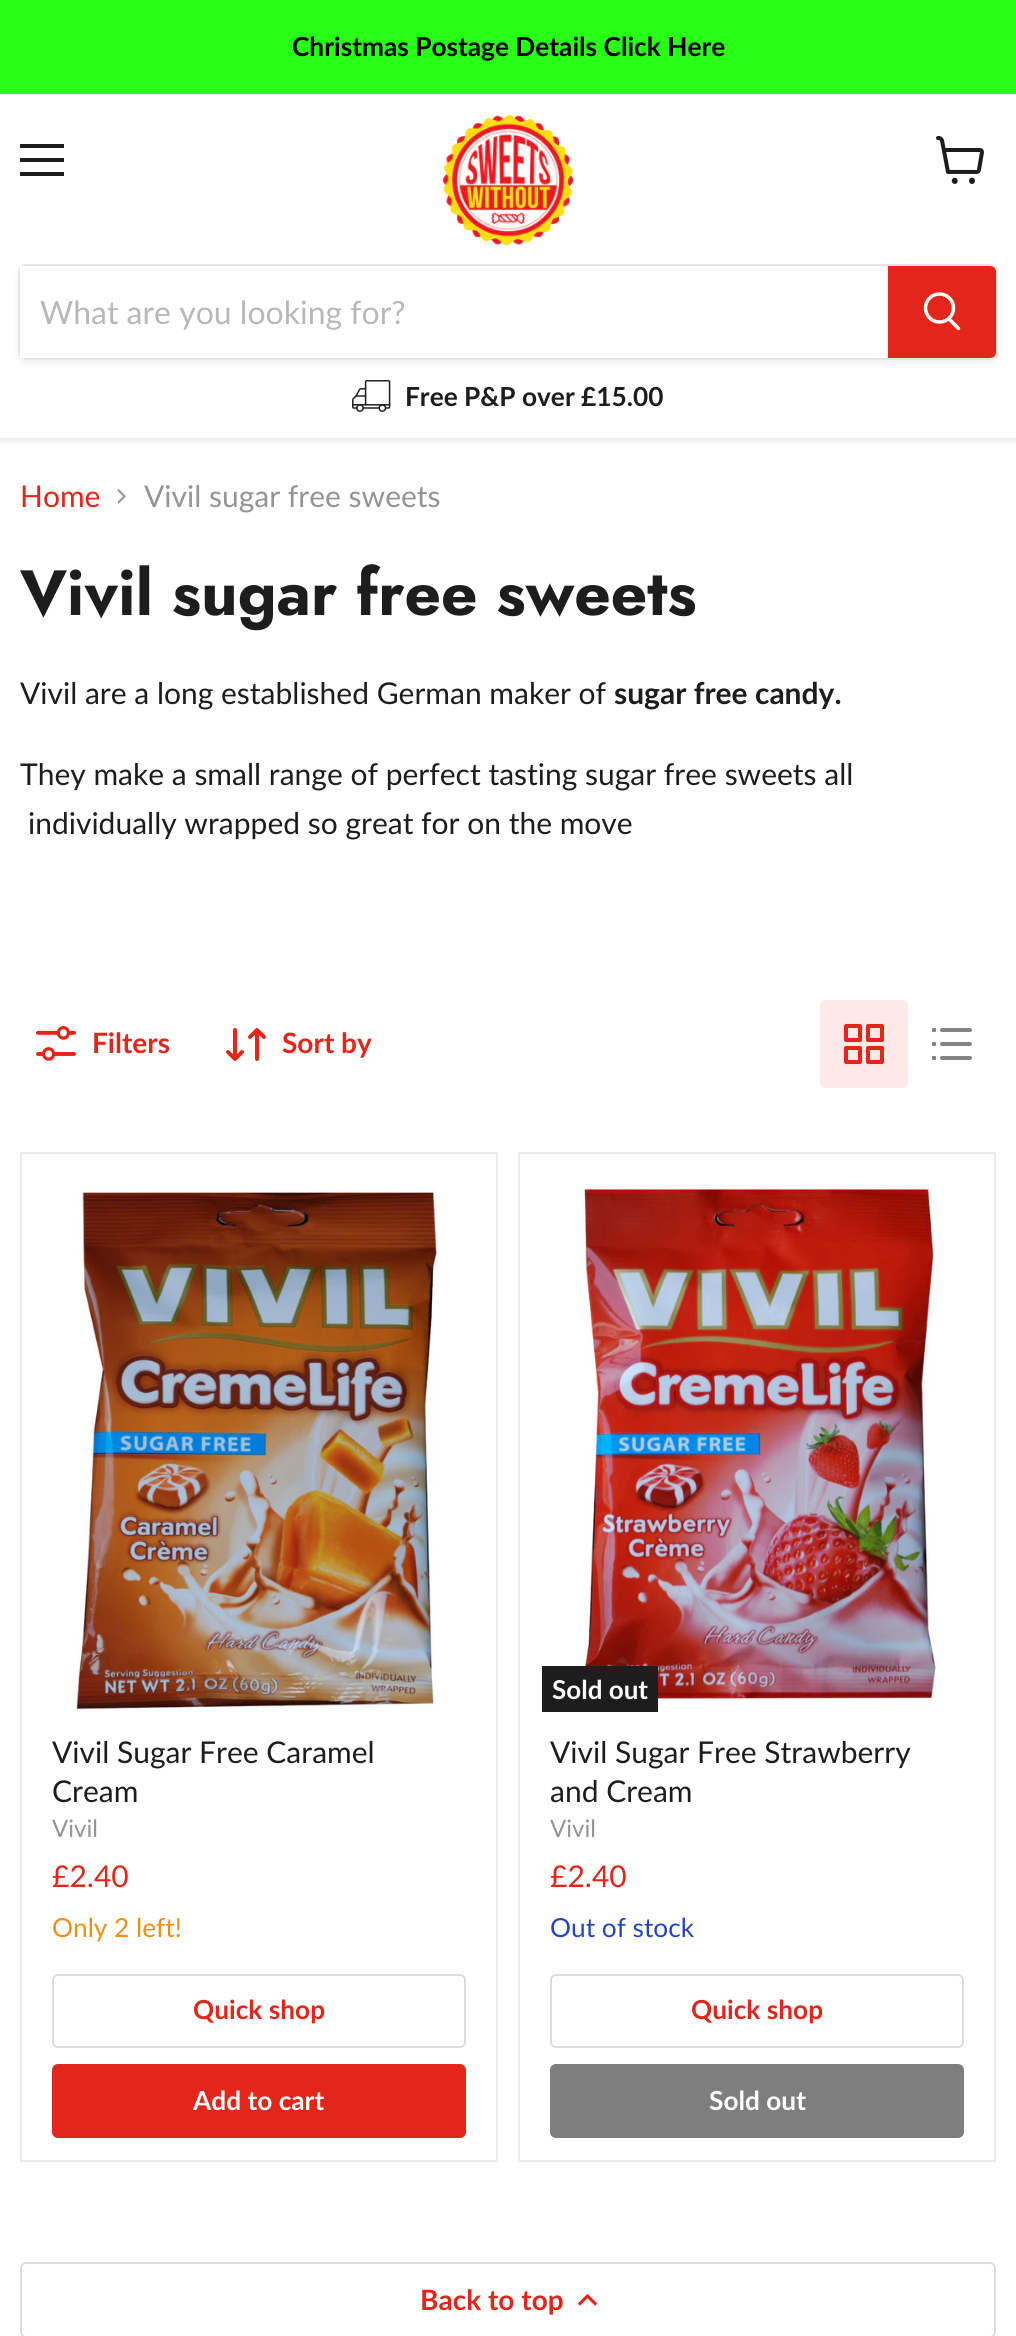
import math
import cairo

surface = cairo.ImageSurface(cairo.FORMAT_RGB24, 1016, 2336)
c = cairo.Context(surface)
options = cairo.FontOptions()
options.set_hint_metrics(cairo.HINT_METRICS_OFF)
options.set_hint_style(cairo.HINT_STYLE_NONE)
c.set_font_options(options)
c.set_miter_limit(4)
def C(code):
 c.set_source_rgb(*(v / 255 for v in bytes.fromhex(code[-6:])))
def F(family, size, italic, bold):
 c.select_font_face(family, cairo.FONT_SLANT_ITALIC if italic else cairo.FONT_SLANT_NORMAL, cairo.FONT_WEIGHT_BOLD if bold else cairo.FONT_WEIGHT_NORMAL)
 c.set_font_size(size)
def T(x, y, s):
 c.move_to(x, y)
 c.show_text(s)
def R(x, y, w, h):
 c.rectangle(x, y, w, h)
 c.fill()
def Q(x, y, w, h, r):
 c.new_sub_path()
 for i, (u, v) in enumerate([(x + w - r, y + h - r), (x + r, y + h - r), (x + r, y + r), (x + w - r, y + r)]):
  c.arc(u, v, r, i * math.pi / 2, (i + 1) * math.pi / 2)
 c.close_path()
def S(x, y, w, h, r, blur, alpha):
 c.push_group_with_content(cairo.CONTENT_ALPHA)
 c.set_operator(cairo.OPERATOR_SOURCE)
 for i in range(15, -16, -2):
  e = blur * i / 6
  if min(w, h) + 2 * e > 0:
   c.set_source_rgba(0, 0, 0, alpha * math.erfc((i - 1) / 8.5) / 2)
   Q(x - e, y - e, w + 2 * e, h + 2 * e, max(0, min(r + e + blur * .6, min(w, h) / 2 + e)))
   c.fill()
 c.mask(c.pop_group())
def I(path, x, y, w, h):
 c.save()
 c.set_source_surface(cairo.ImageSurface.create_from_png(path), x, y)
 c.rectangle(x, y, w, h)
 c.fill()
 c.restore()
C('ffffff')
c.paint()
c.save()
c.rectangle(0,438,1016,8)
c.clip()
C('808080')
S(0,96,1016,344,0,4,.25)
c.restore()
C('27ff16')
R(0,0,1016,94)
F('Lato',26.25,0,1)
C('000000')
T(292,56,'Christmas Postage Details Click Here')
C('1d1d1d')
R(20,144,44,4)
R(20,158,44,4)
R(20,172,44,4)
I('1.png',936,136,48,48)
I('2.png',442,114,132,132)
c.save()
c.set_fill_rule(cairo.FILL_RULE_EVEN_ODD)
c.new_path()
c.move_to(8,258)
c.line_to(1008,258)
c.line_to(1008,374)
c.line_to(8,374)
c.close_path()
c.move_to(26,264)
c.line_to(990,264)
c.curve_to(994.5,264,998,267.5,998,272)
c.line_to(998,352)
c.curve_to(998,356.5,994.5,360,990,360)
c.line_to(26,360)
c.curve_to(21.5,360,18,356.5,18,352)
c.line_to(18,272)
c.curve_to(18,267.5,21.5,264,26,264)
c.close_path()
c.clip()
C('808080')
S(18,268,980,96,8,3,.11)
c.restore()
Q(19,265,978,94,7)
c.set_source_rgba(0.502,0.502,0.502,0.2)
c.stroke()
C('ffffff')
R(20,266,5,92)
F('Lato',32,0,0)
C('b8b8b8')
T(40,324,'What are you looking for?')
C('e32619')
c.new_path()
c.move_to(889,267)
c.line_to(990,267)
c.curve_to(993,267,995,269,995,272)
c.line_to(995,352)
c.curve_to(995,355,993,357,990,357)
c.line_to(889,357)
c.close_path()
c.fill_preserve()
c.stroke()
c.new_path()
c.move_to(958.5,328.5)
c.line_to(949,319)
C('ffffff')
c.set_line_width(3.5)
c.set_line_cap(cairo.LINE_CAP_ROUND)
c.stroke()
c.arc(939.5,308,14,0,2 * math.pi)
c.set_line_cap(cairo.LINE_CAP_BUTT)
c.stroke()
I('3.png',352,380,39,32)
F('Lato',26.25,0,1)
C('1d1d1d')
T(405,406,'Free P&P over £15.00')
F('Lato',30,0,0)
C('e32619')
T(20,507,'Home')
I('4.png',117,489,9,15)
C('949494')
T(144,507,'Vivil sugar free sweets')
F('Jost',63.75,0,1)
C('1d1d1d')
T(20,615,'Vivil sugar free sweets')
F('Lato',30,0,0)
T(20,704,'Vivil are a long established German maker of')
F('Lato',30,0,1)
T(614,704,'sugar free candy.')
F('Lato',30,0,0)
T(20,785,'They make a small range of perfect tasting sugar free sweets all')
T(28,834,'individually wrapped so great for on the move')
I('5.png',36,1026,40,35)
F('Lato',28,0,1)
C('e32619')
T(92,1053,'Filters')
I('6.png',226,1028,40,33)
T(282,1053,'Sort by')
C('fce9e8')
Q(820,1000,88,88,6)
c.fill()
I('7.png',844,1024,40,40)
I('8.png',932,1028,40,32)
c.rectangle(21,1153,476,1008)
C('ebebeb')
c.set_line_width(2)
c.stroke()
I('9.png',74,1189,366,523)
F('Lato',30,0,0)
C('1d1d1d')
T(52,1763,'Vivil Sugar Free Caramel')
T(52,1802,'Cream')
F('Lato',24,0,0)
C('949494')
T(52,1837,'Vivil')
F('Lato',30,0,0)
C('e32619')
T(52,1887,'£2.40')
F('Lato',26.25,0,0)
C('e99114')
T(52,1937,'Only 2 left!')
Q(53,1975,412,72,5)
C('dddddd')
c.stroke()
F('Lato',26.25,0,1)
C('e32619')
T(193,2019,'Quick shop')
Q(53,2065,412,72,5)
c.fill_preserve()
c.stroke()
C('ffffff')
T(193,2110,'Add to cart')
c.rectangle(519,1153,476,1008)
C('ebebeb')
c.stroke()
I('10.png',582,1187,357,513)
C('1d1d1d')
R(542,1666,116,46)
F('Lato',26,0,1)
C('ffffff')
T(552,1699,'Sold out')
F('Lato',30,0,0)
C('1d1d1d')
T(550,1763,'Vivil Sugar Free Strawberry')
T(550,1802,'and Cream')
F('Lato',24,0,0)
C('949494')
T(550,1837,'Vivil')
F('Lato',30,0,0)
C('e32619')
T(550,1887,'£2.40')
F('Lato',26.25,0,0)
C('2644bf')
T(550,1937,'Out of stock')
Q(551,1975,412,72,5)
C('dddddd')
c.stroke()
F('Lato',26.25,0,1)
C('e32619')
T(691,2019,'Quick shop')
C('7e7e7e')
Q(551,2065,412,72,5)
c.fill_preserve()
c.stroke()
C('ffffff')
T(709,2110,'Sold out')
Q(21,2263,974,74,5)
C('dddddd')
c.stroke()
F('Lato',28,0,1)
C('e32619')
T(420,2310,'Back to top')
c.new_path()
c.move_to(587.5,2296)
c.line_to(580,2303.5)
c.move_to(587.5,2296)
c.line_to(595,2303.5)
c.set_line_width(3.1)
c.set_line_cap(cairo.LINE_CAP_SQUARE)
c.stroke()
surface.write_to_png('o.png')
